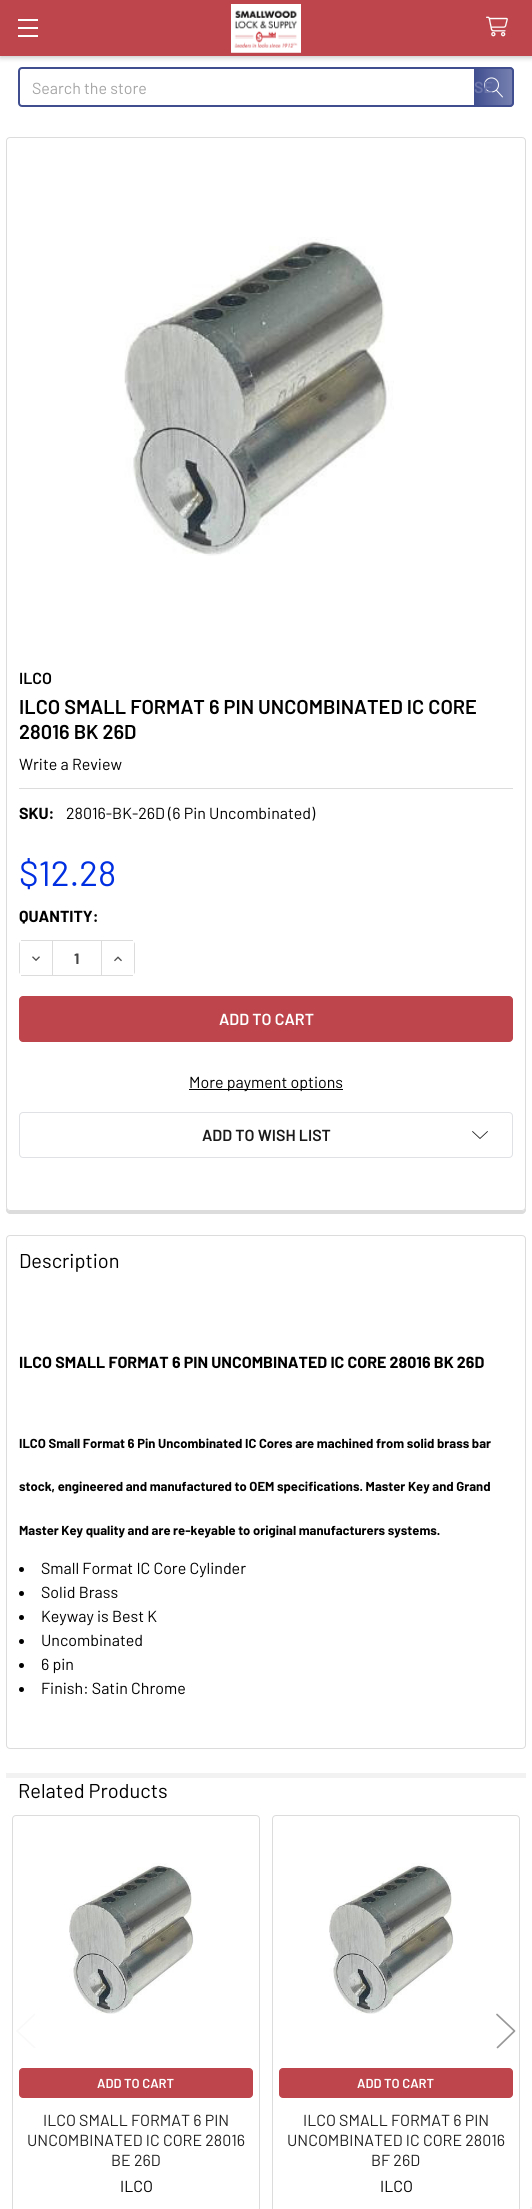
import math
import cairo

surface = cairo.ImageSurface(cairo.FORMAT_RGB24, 532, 2209)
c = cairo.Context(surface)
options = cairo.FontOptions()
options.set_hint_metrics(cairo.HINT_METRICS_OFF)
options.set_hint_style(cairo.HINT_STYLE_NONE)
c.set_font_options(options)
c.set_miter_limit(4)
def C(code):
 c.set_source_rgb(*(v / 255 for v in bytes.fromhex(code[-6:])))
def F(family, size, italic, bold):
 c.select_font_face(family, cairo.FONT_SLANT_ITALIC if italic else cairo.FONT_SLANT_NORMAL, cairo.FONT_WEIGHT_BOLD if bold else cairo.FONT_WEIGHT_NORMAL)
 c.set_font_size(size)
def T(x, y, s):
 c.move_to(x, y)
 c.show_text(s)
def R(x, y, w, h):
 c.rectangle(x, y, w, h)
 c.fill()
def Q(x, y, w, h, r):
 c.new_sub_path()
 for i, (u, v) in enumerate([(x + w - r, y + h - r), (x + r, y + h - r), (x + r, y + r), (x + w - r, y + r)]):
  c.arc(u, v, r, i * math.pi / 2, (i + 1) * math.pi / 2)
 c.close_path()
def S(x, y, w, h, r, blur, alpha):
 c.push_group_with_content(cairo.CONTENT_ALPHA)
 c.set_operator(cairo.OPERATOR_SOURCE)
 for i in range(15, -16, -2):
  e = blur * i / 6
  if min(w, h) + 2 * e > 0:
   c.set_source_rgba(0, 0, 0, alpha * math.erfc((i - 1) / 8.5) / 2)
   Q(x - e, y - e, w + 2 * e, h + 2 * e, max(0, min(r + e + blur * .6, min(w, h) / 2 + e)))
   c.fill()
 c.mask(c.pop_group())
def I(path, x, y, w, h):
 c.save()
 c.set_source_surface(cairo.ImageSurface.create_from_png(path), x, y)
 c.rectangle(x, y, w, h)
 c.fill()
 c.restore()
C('ffffff')
c.paint()
C('000000')
S(0,2,532,56,0,2.5,.2)
C('bd454b')
R(0,0,532,56)
C('ffffff')
R(18,27,20,2)
R(18,19,20,2)
R(18,35,20,2)
I('1.png',231,4,70,49)
I('2.png',486,16,22,21)
Q(19,68,494,38,3)
C('404e90')
c.stroke()
F('Barlow',16,0,0)
C('a5a5a5')
T(32,94,'Search the store')
gradient = cairo.LinearGradient(474,87,514,87)
gradient.add_color_stop_rgba(0,0.251,0.306,0.565,1)
gradient.add_color_stop_rgba(1,0.251,0.306,0.565,.7)
c.set_source(gradient)
c.new_path()
c.move_to(474,67)
c.line_to(510,67)
c.curve_to(512,67,514,69,514,71)
c.line_to(514,103)
c.curve_to(514,105,512,107,510,107)
c.line_to(474,107)
c.close_path()
c.fill()
I('3.png',484,77,19,21)
F('Barlow SemiBold',16,0,0)
C('6b75a9')
T(474,93,'SE')
C('dcdcdc')
c.new_path()
c.move_to(6,1207)
c.line_to(6,1210)
c.curve_to(6,1212,8,1214,10,1214)
c.line_to(522,1214)
c.curve_to(524,1214,526,1212,526,1210)
c.line_to(526,1207)
c.curve_to(526,1209,524,1211,522,1211)
c.line_to(10,1211)
c.curve_to(8,1211,6,1209,6,1207)
c.close_path()
c.fill()
C('ffffff')
Q(6.5,137.5,519,1073,3.5)
c.fill_preserve()
C('dcdcdc')
c.set_line_width(1)
c.stroke()
I('4.png',124,237,270,319)
C('000000')
T(19,684,'ILCO')
F('Barlow SemiBold',20,0,0)
T(19,714,'ILCO SMALL FORMAT 6 PIN UNCOMBINATED IC CORE')
T(19,739,'28016 BK 26D')
F('Barlow',16,0,0)
T(19,770,'Write a Review')
C('dcdcdc')
R(19,788,494,1)
F('Barlow',16,0,1)
C('000000')
T(19,819,'SKU:')
F('Barlow',16,0,0)
T(66,819,'28016-BK-26D (6 Pin Uncombinated)')
F('Barlow',35,0,0)
C('002fe1')
T(19,886,'$12.28')
F('Barlow',16,0,1)
C('000000')
T(19,922,'QUANTITY:')
C('dcdcdc')
R(21,940,112,1)
R(21,975,112,1)
R(52,941,1,34)
c.new_path()
c.move_to(19,944)
c.line_to(19,972.5)
c.line_to(20,974)
c.line_to(20,942)
c.curve_to(19.5,942.5,19,943,19,944)
c.close_path()
c.fill()
I('5.png',32,956,8,5)
F('Barlow',15,0,1)
C('454545')
T(74,964,'1')
C('dcdcdc')
c.new_path()
c.move_to(135,972)
c.line_to(135,943.5)
c.line_to(134,942)
c.line_to(134,974)
c.curve_to(134.5,973.5,135,973,135,972)
c.close_path()
c.fill()
R(101,941,1,34)
I('6.png',114,956,8,6)
C('bd454b')
Q(19.5,996.5,493,45,3.5)
c.fill_preserve()
c.stroke()
F('Barlow SemiBold',16,0,0)
C('ffffff')
T(219,1025,'ADD TO CART')
C('000000')
R(189,1089,154,1)
F('Barlow',16,0,0)
T(189,1088,'More payment options')
Q(19.5,1112.5,493,45,3.5)
C('e0e1e4')
c.stroke()
F('Barlow SemiBold',16,0,0)
C('1a1a1a')
T(202,1141,'ADD TO WISH LIST')
I('7.png',472,1131,16,8)
Q(6.5,1235.5,519,513,3.5)
C('dcdcdc')
c.stroke()
F('Barlow',20,0,0)
C('000000')
T(19,1268,'Description')
F('Barlow',16,0,1)
T(19,1368,'ILCO SMALL FORMAT 6 PIN UNCOMBINATED IC CORE 28016 BK 26D')
F('Barlow',13,0,1)
T(19,1448,'ILCO Small Format 6 Pin Uncombinated IC Cores are machined from solid brass bar')
T(19,1491,'stock, engineered and manufactured to OEM specifications. Master Key and Grand')
T(19,1535,'Master Key quality and are re-keyable to original manufacturers systems.')
c.new_path()
c.arc(21.5,1569.5,2.5,0,2 * math.pi)
c.fill()
F('Barlow',16,0,0)
T(41,1574,'Small Format IC Core Cylinder')
c.new_path()
c.arc(21.5,1593.5,2.5,0,2 * math.pi)
c.fill()
T(41,1598,'Solid Brass')
c.new_path()
c.arc(21.5,1617.5,2.5,0,2 * math.pi)
c.fill()
T(41,1622,'Keyway is Best K')
c.new_path()
c.arc(21.5,1641.5,2.5,0,2 * math.pi)
c.fill()
T(41,1646,'Uncombinated')
c.new_path()
c.arc(21.5,1665.5,2.5,0,2 * math.pi)
c.fill()
T(41,1670,'6 pin')
c.new_path()
c.arc(21.5,1689.5,2.5,0,2 * math.pi)
c.fill()
T(41,1694,'Finish: Satin Chrome')
C('f2f2f2')
R(6,1773,520,5)
F('Barlow',20,0,0)
C('000000')
T(18,1798,'Related Products')
Q(12.5,1815.5,247,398,3.5)
C('dcdcdc')
c.stroke()
c.new_path()
c.move_to(34.5,2014.5)
c.line_to(17,2031)
c.line_to(34.5,2047.5)
C('f9f9f9')
c.set_line_width(1.7)
c.set_line_cap(cairo.LINE_CAP_ROUND)
c.set_line_join(cairo.LINE_JOIN_ROUND)
c.stroke()
Q(272.5,1815.5,247,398,3.5)
C('dcdcdc')
c.set_line_width(1)
c.set_line_cap(cairo.LINE_CAP_BUTT)
c.set_line_join(cairo.LINE_JOIN_MITER)
c.stroke()
c.new_path()
c.move_to(497,2014.5)
c.line_to(514.5,2031)
c.line_to(497.5,2047.5)
C('989898')
c.set_line_width(1.7)
c.set_line_cap(cairo.LINE_CAP_ROUND)
c.set_line_join(cairo.LINE_JOIN_ROUND)
c.stroke()
I('8.png',69,1863,125,151)
C('bd454b')
Q(19.5,2068.5,233,29,3.5)
c.fill_preserve()
c.set_line_width(1)
c.set_line_cap(cairo.LINE_CAP_BUTT)
c.set_line_join(cairo.LINE_JOIN_MITER)
c.stroke()
F('Barlow SemiBold',13,0,0)
C('ffffff')
T(97,2088,'ADD TO CART')
F('Barlow',16,0,0)
C('202020')
T(43,2126,'ILCO SMALL FORMAT 6 PIN')
T(27,2146,'UNCOMBINATED IC CORE 28016')
T(111,2166,'BE 26D')
C('000000')
T(120,2192,'ILCO')
I('9.png',329,1863,125,151)
C('bd454b')
Q(279.5,2068.5,233,29,3.5)
c.fill_preserve()
c.stroke()
F('Barlow SemiBold',13,0,0)
C('ffffff')
T(357,2088,'ADD TO CART')
F('Barlow',16,0,0)
C('202020')
T(303,2126,'ILCO SMALL FORMAT 6 PIN')
T(287,2146,'UNCOMBINATED IC CORE 28016')
T(371,2166,'BF 26D')
C('000000')
T(380,2192,'ILCO')
C('f5f5f5')
R(530,2207,2,2)
surface.write_to_png('o.png')
